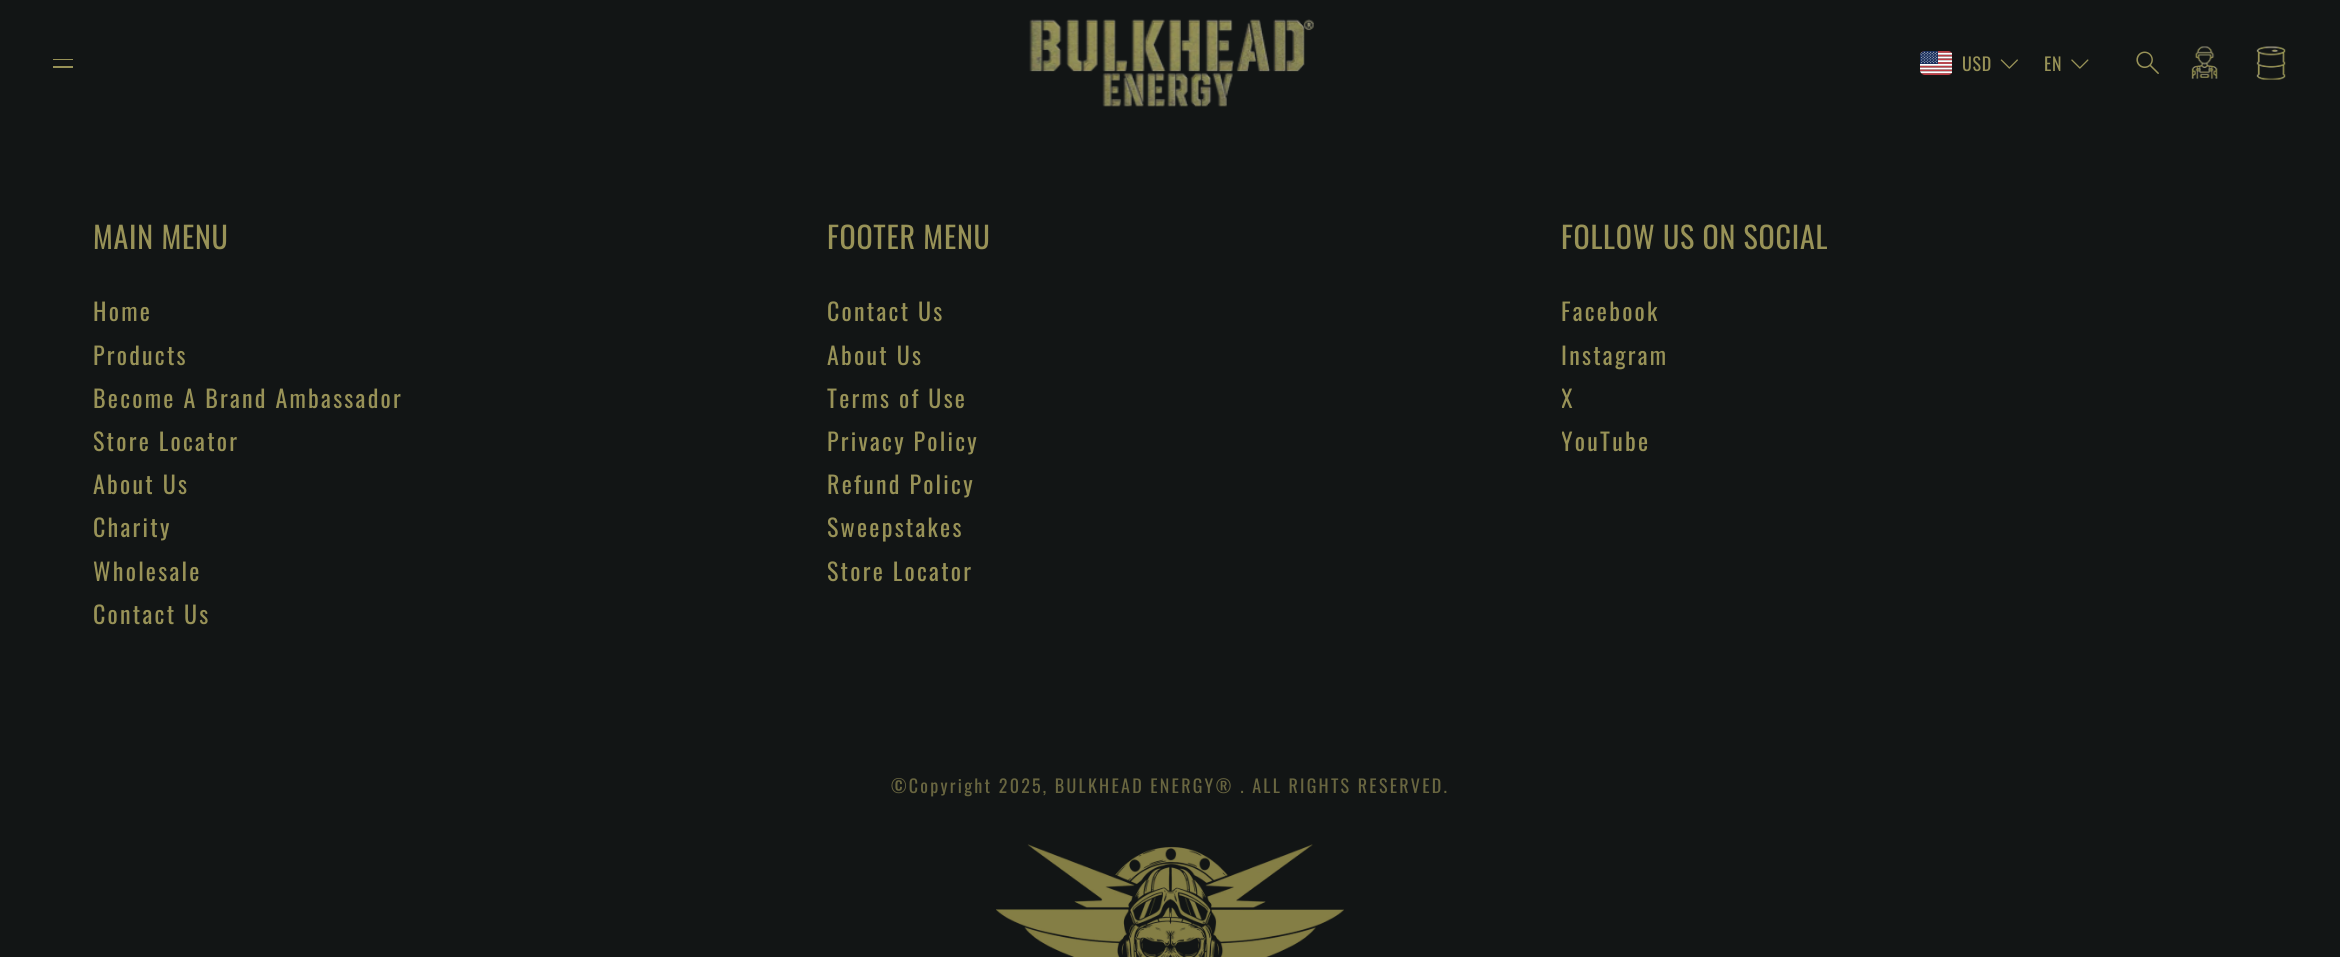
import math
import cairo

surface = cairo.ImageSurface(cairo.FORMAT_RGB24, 2340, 957)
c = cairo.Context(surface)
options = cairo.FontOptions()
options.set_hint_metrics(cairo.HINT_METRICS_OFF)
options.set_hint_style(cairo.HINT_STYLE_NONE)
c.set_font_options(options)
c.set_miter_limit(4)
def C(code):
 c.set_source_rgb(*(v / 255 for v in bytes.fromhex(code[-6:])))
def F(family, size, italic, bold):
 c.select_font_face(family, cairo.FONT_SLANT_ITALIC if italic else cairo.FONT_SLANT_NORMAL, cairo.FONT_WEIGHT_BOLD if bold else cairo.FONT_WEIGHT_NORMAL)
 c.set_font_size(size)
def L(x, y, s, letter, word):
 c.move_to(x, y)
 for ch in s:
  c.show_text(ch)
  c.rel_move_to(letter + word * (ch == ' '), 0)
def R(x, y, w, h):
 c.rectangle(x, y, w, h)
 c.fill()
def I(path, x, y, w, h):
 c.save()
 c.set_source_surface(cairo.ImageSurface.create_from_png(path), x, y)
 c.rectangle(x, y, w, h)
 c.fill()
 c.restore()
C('121515')
c.paint()
C('989257')
R(53,59,20,1)
R(53,66,20,2)
I('1.png',1029,19,285,88)
I('2.png',1920,51,32,24)
F('Oswald',18,0,0)
L(1962,71,'USD',.75,0)
I('3.png',2000,59,18,10)
L(2044,71,'EN',.75,0)
I('4.png',2071,59,18,10)
I('5.png',2136,51,23,23)
I('6.png',2191,46,27,33)
I('7.png',2256,46,30,34)
F('Oswald',30,0,0)
L(93,249,'MAIN MENU',.75,0)
F('Oswald',24,0,0)
L(93,321,'Home',2.25,0)
L(93,365,'Products',2.25,0)
L(93,408,'Become A Brand Ambassador',2.25,0)
L(93,451,'Store Locator',2.25,0)
L(93,494,'About Us',2.25,0)
L(93,537,'Charity',2.25,0)
L(93,581,'Wholesale',2.25,0)
L(93,624,'Contact Us',2.25,0)
F('Oswald',30,0,0)
L(827,249,'FOOTER MENU',.75,0)
F('Oswald',24,0,0)
L(827,321,'Contact Us',2.25,0)
L(827,365,'About Us',2.25,0)
L(827,408,'Terms of Use',2.25,0)
L(827,451,'Privacy Policy',2.25,0)
L(827,494,'Refund Policy',2.25,0)
L(827,537,'Sweepstakes',2.25,0)
L(827,581,'Store Locator',2.25,0)
F('Oswald',30,0,0)
L(1561,249,'FOLLOW US ON SOCIAL',.75,0)
F('Oswald',24,0,0)
L(1561,321,'Facebook',2.25,0)
L(1561,365,'Instagram',2.25,0)
c.save()
c.rectangle(1562,284,685,184)
c.clip()
L(1561,408,'X',2.25,0)
L(1561,451,'YouTube',2.25,0)
c.restore()
F('Oswald',18,0,0)
C('696640')
L(891,793,'©Copyright 2025, BULKHEAD ENERGY® . ALL RIGHTS RESERVED.',2.25,0)
I('8.png',996,844,348,113)
surface.write_to_png('o.png')
